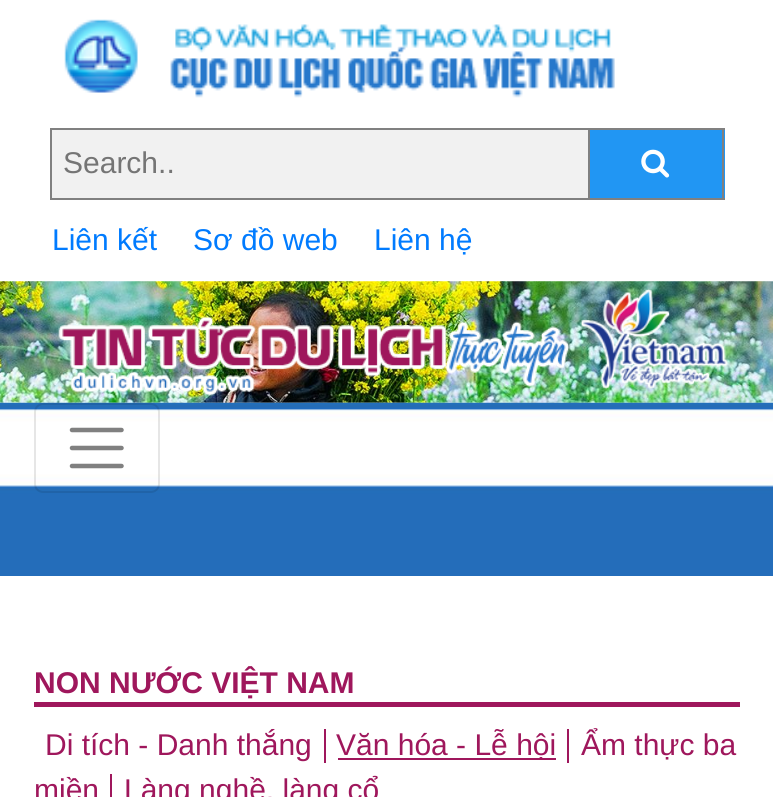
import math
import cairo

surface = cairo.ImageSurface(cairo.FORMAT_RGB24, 773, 797)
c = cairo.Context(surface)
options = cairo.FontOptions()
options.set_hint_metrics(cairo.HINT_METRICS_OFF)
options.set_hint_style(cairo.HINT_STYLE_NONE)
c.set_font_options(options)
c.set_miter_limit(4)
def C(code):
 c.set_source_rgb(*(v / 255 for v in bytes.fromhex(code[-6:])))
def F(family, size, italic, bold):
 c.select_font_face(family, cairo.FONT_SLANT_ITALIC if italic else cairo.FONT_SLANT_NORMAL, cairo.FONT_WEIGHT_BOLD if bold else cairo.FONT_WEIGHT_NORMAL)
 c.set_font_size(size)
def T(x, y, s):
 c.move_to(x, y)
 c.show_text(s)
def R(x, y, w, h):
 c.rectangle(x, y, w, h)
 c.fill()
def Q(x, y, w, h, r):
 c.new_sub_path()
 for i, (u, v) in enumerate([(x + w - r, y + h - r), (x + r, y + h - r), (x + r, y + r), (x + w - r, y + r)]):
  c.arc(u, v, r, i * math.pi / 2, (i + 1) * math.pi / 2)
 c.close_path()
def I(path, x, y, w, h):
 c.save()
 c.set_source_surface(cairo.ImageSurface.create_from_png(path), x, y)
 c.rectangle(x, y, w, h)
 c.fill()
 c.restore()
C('ffffff')
c.paint()
I('1.png',64,19,551,79)
C('f1f1f1')
c.rectangle(51,129,538,70)
c.fill_preserve()
C('808080')
c.stroke()
F('Liberation Sans',30,0,0)
C('757575')
T(63,173,'Search..')
C('2196f3')
R(590,130,135,68)
C('808080')
R(590,128,135,2)
R(722,128,2,72)
R(590,198,135,2)
I('2.png',641,149,29,29)
C('007bff')
T(52,250,'Liên kết')
T(193,250,'Sơ đồ web')
T(374,250,'Liên hệ')
I('3.png',0,281,773,122)
I('4.png',58,288,670,108)
I('5.png',0,402,773,174)
Q(35,404,124,88,8)
c.set_source_rgba(0,0,0,0.1)
c.stroke()
c.new_path()
c.move_to(72,430)
c.line_to(121.5,430)
c.move_to(72,448)
c.line_to(121.5,448)
c.move_to(72,466)
c.line_to(121.5,466)
C('808080')
c.set_line_width(4.5)
c.set_line_cap(cairo.LINE_CAP_ROUND)
c.stroke()
C('9f175c')
R(34,702,706,5)
F('Liberation Sans',30,0,1)
T(34,693,'NON NƯỚC VIỆT NAM')
F('Liberation Sans',30,0,0)
T(45,755,'Di tích - Danh thắng')
R(338,758,218,2)
T(336,755,'Văn hóa - Lễ hội')
R(324,729,2,34)
T(581,755,'Ẩm thực ba')
R(567,729,2,34)
T(34,800,'miền')
T(124,800,'Làng nghề, làng cổ')
R(110,774,2,23)
surface.write_to_png('o.png')
